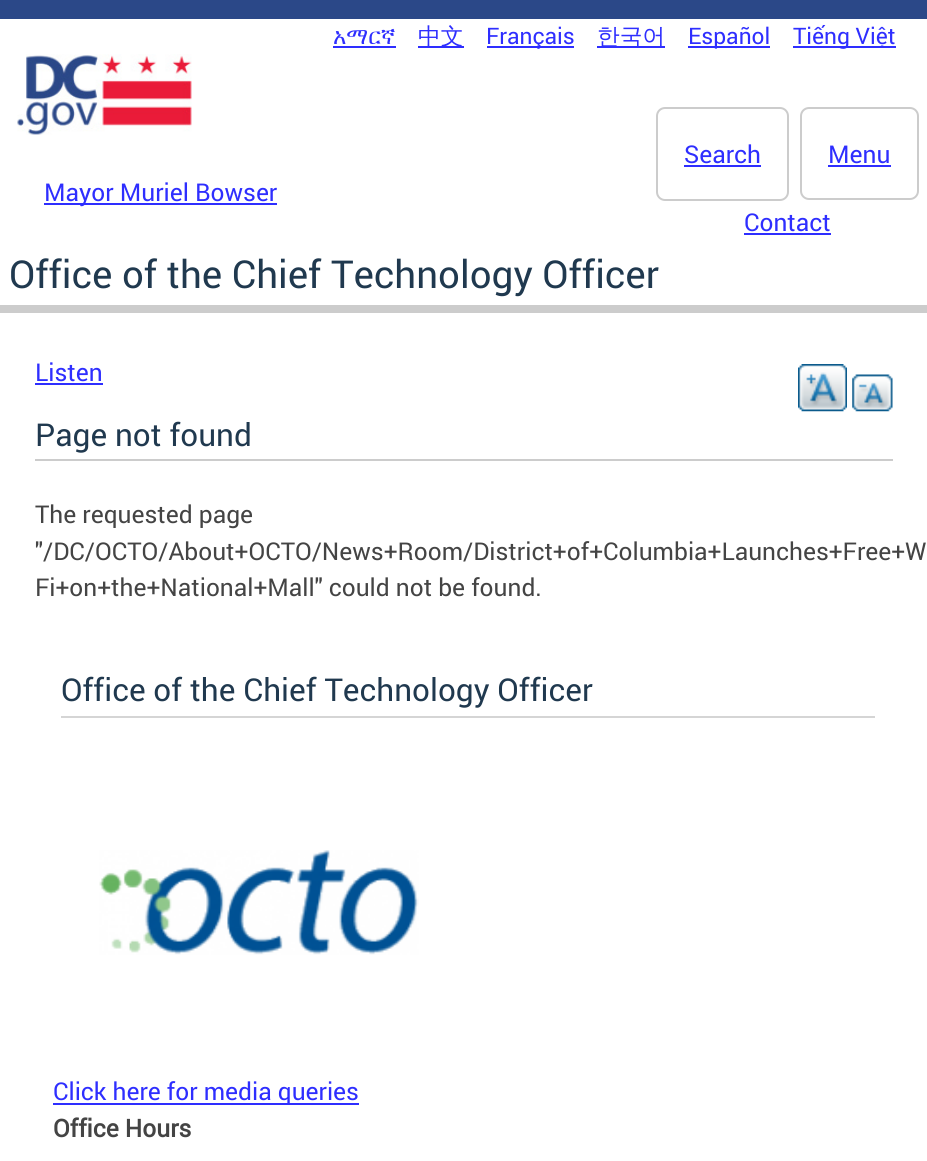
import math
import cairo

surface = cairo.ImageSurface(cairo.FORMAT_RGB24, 927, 1161)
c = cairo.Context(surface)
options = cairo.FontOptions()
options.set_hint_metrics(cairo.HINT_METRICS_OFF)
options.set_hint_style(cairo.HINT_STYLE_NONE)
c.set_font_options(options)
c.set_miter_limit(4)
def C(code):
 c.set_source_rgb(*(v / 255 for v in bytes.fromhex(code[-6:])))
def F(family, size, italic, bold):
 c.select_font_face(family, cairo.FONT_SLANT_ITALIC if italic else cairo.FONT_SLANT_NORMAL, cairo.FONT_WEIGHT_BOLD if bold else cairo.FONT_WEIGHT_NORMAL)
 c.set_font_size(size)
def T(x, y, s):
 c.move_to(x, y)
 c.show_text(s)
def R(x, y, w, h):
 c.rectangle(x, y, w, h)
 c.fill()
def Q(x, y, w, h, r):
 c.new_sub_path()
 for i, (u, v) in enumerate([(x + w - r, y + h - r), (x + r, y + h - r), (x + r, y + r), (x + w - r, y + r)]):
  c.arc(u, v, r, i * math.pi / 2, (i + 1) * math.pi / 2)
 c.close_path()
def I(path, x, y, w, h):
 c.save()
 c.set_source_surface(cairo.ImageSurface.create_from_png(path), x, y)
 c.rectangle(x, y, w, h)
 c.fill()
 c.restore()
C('ffffff')
c.paint()
C('2b4888')
R(0,0,927,19)
F('FreeSerif',22.75,0,0)
C('2e2eff')
T(333,44,'አማርኛ')
R(333,46,63,2)
R(418,46,46,2)
F('WenQuanYi Zen Hei Medium',22.75,0,0)
T(418,44,'中文')
R(487,46,87,2)
F('Roboto',22.75,0,0)
T(486,44,'Français')
R(597,46,68,2)
F('WenQuanYi Zen Hei Medium',22.75,0,0)
T(597,44,'한국어')
R(688,46,82,2)
F('Roboto',22.75,0,0)
T(688,44,'Español')
R(793,46,103,2)
T(793,44,'Tiếng Việt')
Q(657,108,131,92,8)
C('cccccc')
c.stroke()
F('Roboto',24.5,0,0)
C('2e2eff')
T(684,163,'Search')
R(684,165,77,2)
Q(801,108,117,91,8)
C('cccccc')
c.stroke()
C('2e2eff')
T(828,163,'Menu')
R(828,165,63,2)
I('1.png',17,54,175,81)
R(44,203,233,2)
T(44,201,'Mayor Muriel Bowser')
T(744,231,'Contact')
R(744,233,87,2)
C('cccccc')
R(0,305,927,8)
F('Roboto',38.5,0,0)
C('20394f')
T(9,288,'Office of the Chief Technology Officer')
F('Roboto',24.5,0,0)
C('2e2eff')
T(35,381,'Listen')
R(35,383,68,2)
I('2.png',798,364,49,48)
I('3.png',852,374,41,38)
C('cccccc')
R(35,459,858,2)
F('Roboto',31.5,0,0)
C('20394f')
T(35,446,'Page not found')
F('Roboto',24.5,0,0)
C('444444')
T(35,523,'The requested page')
T(35,560,'"/DC/OCTO/About+OCTO/News+Room/District+of+Columbia+Launches+Free+W')
T(35,596,'Fi+on+the+National+Mall" could not be found.')
C('d5d5d5')
R(61,716,814,2)
F('Roboto',31.5,0,0)
C('20394f')
T(61,701,'Office of the Chief Technology Officer')
I('4.png',99,850,320,105)
C('2e2eff')
R(53,1103,306,2)
F('Roboto',24.5,0,0)
T(53,1100,'Click here for media queries')
F('Roboto',24.5,0,1)
C('444444')
T(53,1137,'Office Hours')
surface.write_to_png('o.png')
